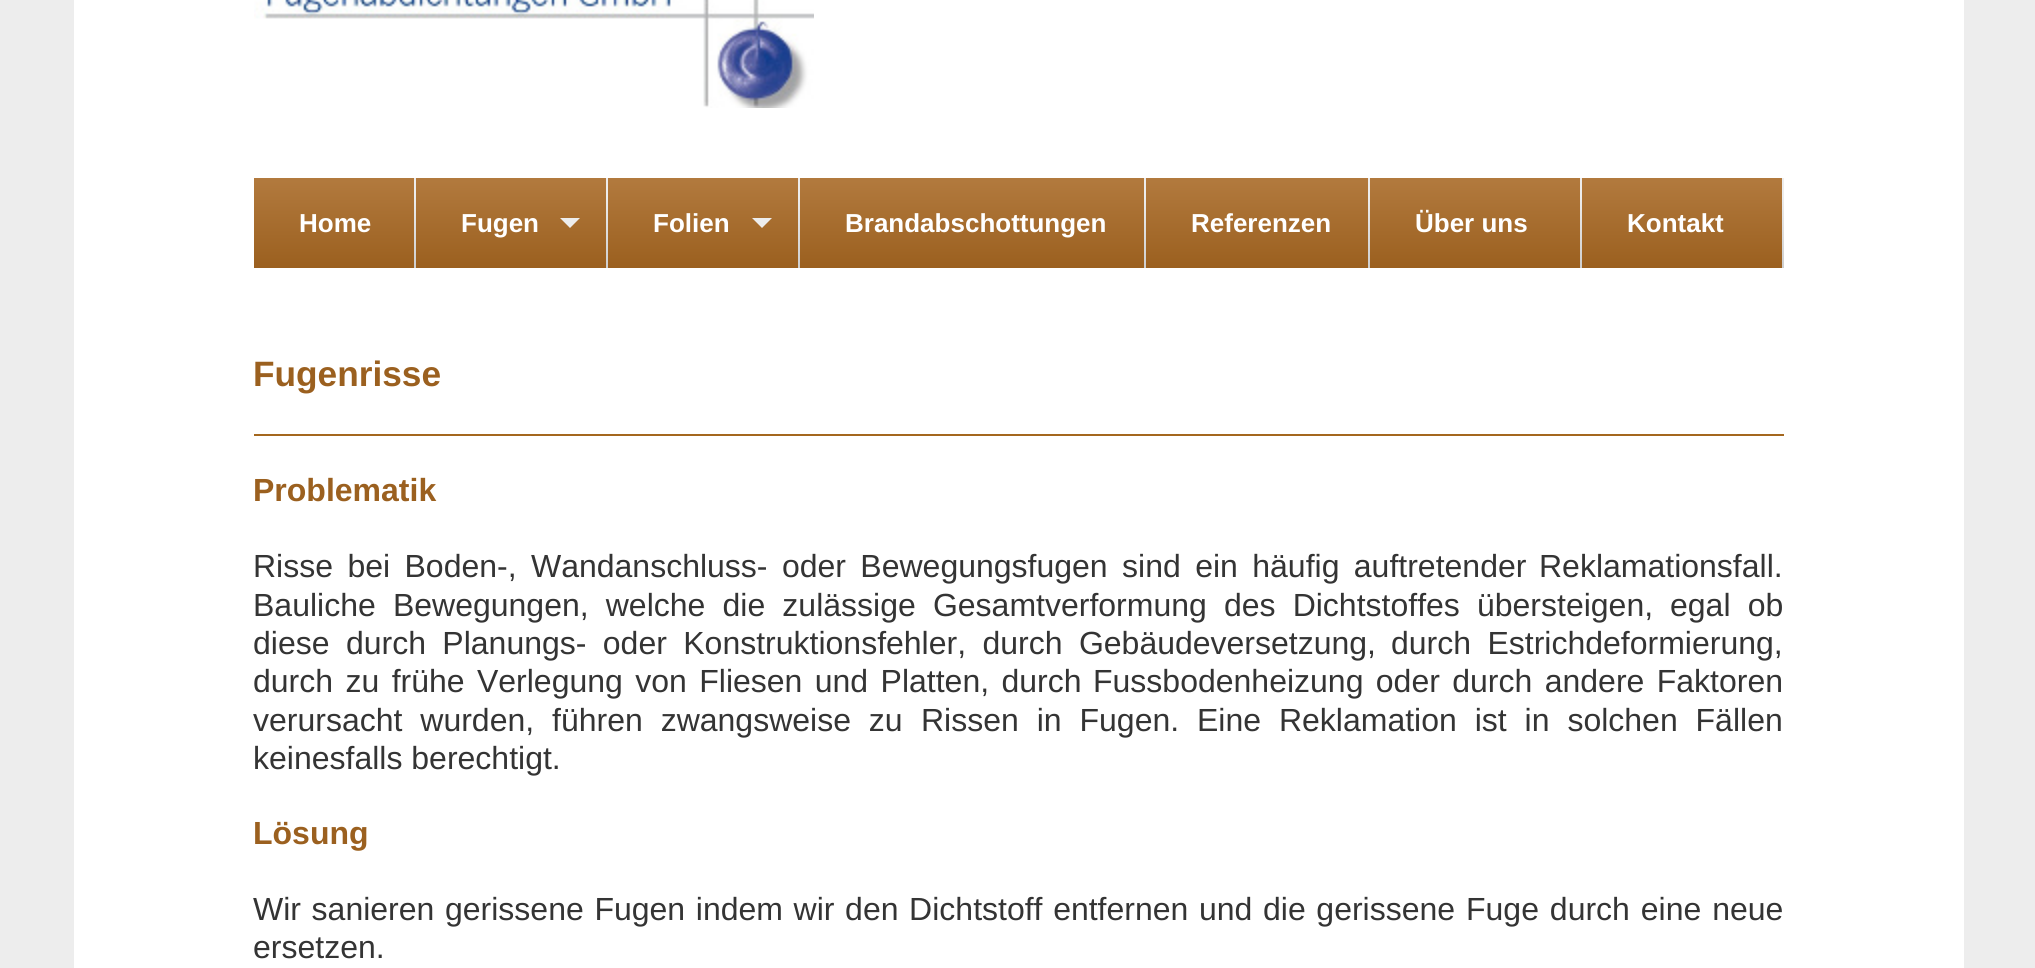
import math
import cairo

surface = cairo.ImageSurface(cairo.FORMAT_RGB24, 2035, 968)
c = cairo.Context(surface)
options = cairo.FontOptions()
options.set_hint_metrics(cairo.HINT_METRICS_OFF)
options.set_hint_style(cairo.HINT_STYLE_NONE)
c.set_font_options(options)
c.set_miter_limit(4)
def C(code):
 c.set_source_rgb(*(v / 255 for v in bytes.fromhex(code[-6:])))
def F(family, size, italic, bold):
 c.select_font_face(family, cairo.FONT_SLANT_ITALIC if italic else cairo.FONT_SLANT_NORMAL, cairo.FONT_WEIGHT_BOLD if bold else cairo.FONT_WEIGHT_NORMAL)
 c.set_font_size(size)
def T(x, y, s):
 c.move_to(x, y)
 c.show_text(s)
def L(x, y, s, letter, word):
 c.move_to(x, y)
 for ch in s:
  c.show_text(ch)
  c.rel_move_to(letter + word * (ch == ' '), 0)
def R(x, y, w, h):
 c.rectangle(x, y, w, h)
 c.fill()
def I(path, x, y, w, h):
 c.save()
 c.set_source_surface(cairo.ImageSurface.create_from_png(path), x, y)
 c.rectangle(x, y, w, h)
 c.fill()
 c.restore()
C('ededed')
c.paint()
C('ffffff')
R(74,0,1890,968)
I('1.png',254,0,560,108)
gradient = cairo.LinearGradient(1019,178,1019,268)
gradient.add_color_stop_rgba(.2,0.929,0.929,0.929,1)
gradient.add_color_stop_rgba(1,0.808,0.808,0.808,1)
c.set_source(gradient)
R(414,178,1370,90)
gradient = cairo.LinearGradient(334,178,334,268)
gradient.add_color_stop_rgba(0,0.698,0.478,0.243,1)
gradient.add_color_stop_rgba(1,0.608,0.376,0.122,1)
c.set_source(gradient)
R(254,178,160,90)
F('Liberation Sans',26,0,1)
C('ffffff')
T(299,232,'Home')
gradient = cairo.LinearGradient(511,178,511,268)
gradient.add_color_stop_rgba(0,0.698,0.478,0.243,1)
gradient.add_color_stop_rgba(1,0.608,0.376,0.122,1)
c.set_source(gradient)
R(416,178,190,90)
C('ffffff')
T(461,232,'Fugen')
C('ededed')
c.new_path()
c.move_to(560,218)
c.line_to(580,218)
c.line_to(570,228)
c.close_path()
c.fill()
gradient = cairo.LinearGradient(703,178,703,268)
gradient.add_color_stop_rgba(0,0.698,0.478,0.243,1)
gradient.add_color_stop_rgba(1,0.608,0.376,0.122,1)
c.set_source(gradient)
R(608,178,190,90)
C('ffffff')
T(653,232,'Folien')
C('ededed')
c.new_path()
c.move_to(752,218)
c.line_to(772,218)
c.line_to(762,228)
c.close_path()
c.fill()
gradient = cairo.LinearGradient(972,178,972,268)
gradient.add_color_stop_rgba(0,0.698,0.478,0.243,1)
gradient.add_color_stop_rgba(1,0.608,0.376,0.122,1)
c.set_source(gradient)
R(800,178,344,90)
C('ffffff')
T(845,232,'Brandabschottungen')
gradient = cairo.LinearGradient(1257,178,1257,268)
gradient.add_color_stop_rgba(0,0.698,0.478,0.243,1)
gradient.add_color_stop_rgba(1,0.608,0.376,0.122,1)
c.set_source(gradient)
R(1146,178,222,90)
C('ffffff')
T(1191,232,'Referenzen')
gradient = cairo.LinearGradient(1475,178,1475,268)
gradient.add_color_stop_rgba(0,0.698,0.478,0.243,1)
gradient.add_color_stop_rgba(1,0.608,0.376,0.122,1)
c.set_source(gradient)
R(1370,178,210,90)
C('ffffff')
T(1415,232,'Über uns')
gradient = cairo.LinearGradient(1682,178,1682,268)
gradient.add_color_stop_rgba(0,0.698,0.478,0.243,1)
gradient.add_color_stop_rgba(1,0.608,0.376,0.122,1)
c.set_source(gradient)
R(1582,178,200,90)
C('ffffff')
T(1627,232,'Kontakt')
C('a4671e')
R(254,434,1530,2)
F('Liberation Sans',35.25,0,1)
C('9b601f')
T(253,386,'Fugenrisse')
F('Liberation Sans',32,0,1)
T(253,501,'Problematik')
F('Liberation Sans',32,0,0)
C('343434')
L(253,577,'Risse bei Boden-, Wandanschluss- oder Bewegungsfugen sind ein häufig auftretender',0,5.5)
T(1539,577,'Reklamationsfall.')
L(253,616,'Bauliche Bewegungen, welche die zulässige Gesamtverformung des Dichtstoffes übersteigen,',0,8.25)
L(1670,616,'egal ob',0,8.25)
L(253,654,'diese durch Planungs- oder Konstruktionsfehler, durch Gebäudeversetzung,',0,7.5)
L(1391,654,'durch Estrichdeformierung,',0,7.5)
L(253,692,'durch zu frühe Verlegung von Fliesen und Platten, durch',0,3.5)
L(1093,692,'Fussbodenheizung oder durch andere Faktoren',0,3.5)
L(253,731,'verursacht wurden, führen zwangsweise zu',0,9)
L(921,731,'Rissen in Fugen.',0,9)
L(1197,731,'Eine Reklamation ist in solchen Fällen',0,9)
T(253,769,'keinesfalls berechtigt.')
F('Liberation Sans',32,0,1)
C('9b601f')
T(253,844,'Lösung')
F('Liberation Sans',32,0,0)
C('343434')
L(253,920,'Wir sanieren gerissene Fugen indem wir den Dichtstoff entfernen und die gerissene',0,1.75)
L(1466,920,'Fuge durch eine neue',0,2)
T(253,958,'ersetzen.')
surface.write_to_png('o.png')
